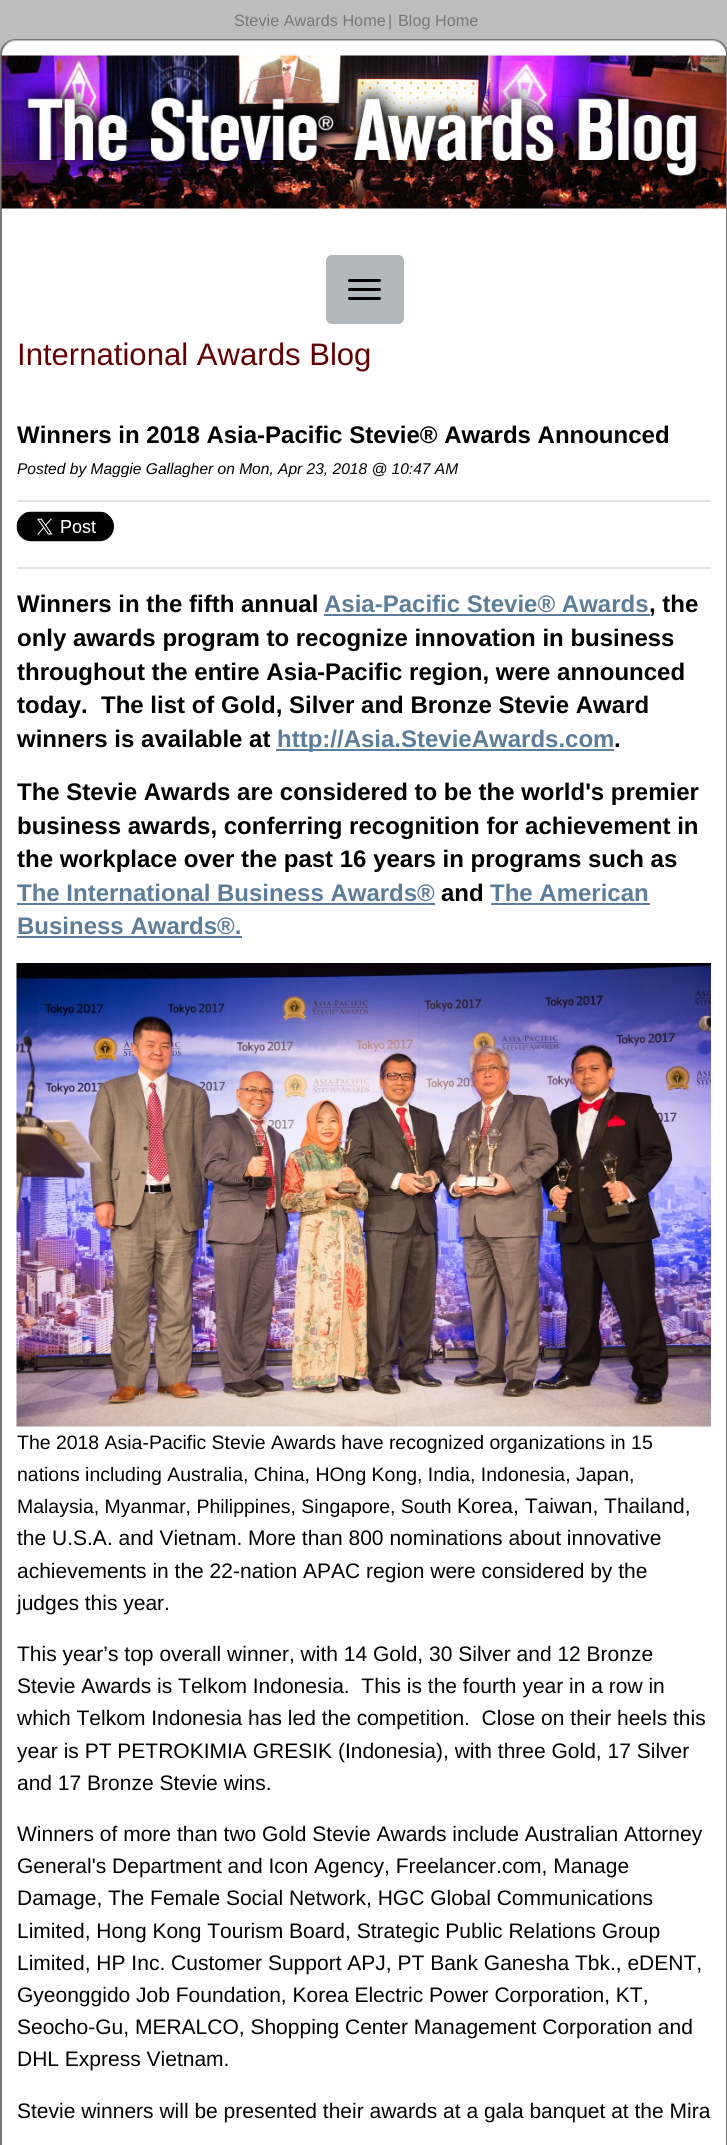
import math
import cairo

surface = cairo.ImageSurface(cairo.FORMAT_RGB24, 727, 2145)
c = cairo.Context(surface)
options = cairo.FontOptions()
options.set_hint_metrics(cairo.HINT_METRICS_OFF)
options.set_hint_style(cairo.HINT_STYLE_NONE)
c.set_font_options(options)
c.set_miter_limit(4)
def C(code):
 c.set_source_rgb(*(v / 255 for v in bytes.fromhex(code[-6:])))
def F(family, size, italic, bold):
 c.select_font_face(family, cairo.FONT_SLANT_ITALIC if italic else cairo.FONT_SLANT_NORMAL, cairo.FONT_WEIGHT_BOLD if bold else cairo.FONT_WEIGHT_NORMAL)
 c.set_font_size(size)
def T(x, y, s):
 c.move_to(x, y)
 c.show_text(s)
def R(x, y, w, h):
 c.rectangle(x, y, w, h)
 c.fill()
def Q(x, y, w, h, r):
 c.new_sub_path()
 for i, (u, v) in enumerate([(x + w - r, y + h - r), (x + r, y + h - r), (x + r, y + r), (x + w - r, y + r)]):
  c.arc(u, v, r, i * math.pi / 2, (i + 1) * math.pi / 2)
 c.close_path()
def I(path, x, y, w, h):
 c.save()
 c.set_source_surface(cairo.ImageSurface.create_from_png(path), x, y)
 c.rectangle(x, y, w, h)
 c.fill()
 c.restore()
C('bdbdbd')
c.paint()
F('Liberation Sans',16.25,0,0)
C('787878')
T(234,26,'Stevie Awards Home')
T(388,26,'|')
T(398,26,'Blog Home')
C('ffffff')
c.new_path()
c.move_to(16,41)
c.line_to(712,41)
c.curve_to(719.5,41,726,47.5,726,55)
c.line_to(726,294)
c.line_to(2,294)
c.line_to(2,55)
c.curve_to(2,47.5,8.5,41,16,41)
c.close_path()
c.fill()
C('787878')
c.set_fill_rule(cairo.FILL_RULE_EVEN_ODD)
c.new_path()
c.move_to(15,39)
c.line_to(712,39)
c.curve_to(721,39,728,46,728,54)
c.line_to(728,294)
c.line_to(0,294)
c.line_to(0,54)
c.curve_to(0,46,7,39,15,39)
c.close_path()
c.move_to(15,40)
c.line_to(712,40)
c.curve_to(720,40,726,47,726,54)
c.line_to(726,294)
c.line_to(2,294)
c.line_to(2,54)
c.curve_to(2,47,8,40,15,40)
c.close_path()
c.fill()
I('1.png',1,55,725,154)
C('ffffff')
R(2,294,724,1851)
C('787878')
c.new_path()
c.move_to(0,294)
c.line_to(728,294)
c.line_to(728,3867)
c.curve_to(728,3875,721,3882,712,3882)
c.line_to(15,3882)
c.curve_to(7,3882,0,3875,0,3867)
c.close_path()
c.move_to(2,294)
c.line_to(726,294)
c.line_to(726,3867)
c.curve_to(726,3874,720,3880,712,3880)
c.line_to(15,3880)
c.curve_to(8,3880,2,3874,2,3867)
c.close_path()
c.fill()
C('b3b8bb')
Q(326,255,78,69,6)
c.fill()
C('000000')
Q(348,288,33,3,1.5)
c.fill()
Q(348,279,33,3,1.5)
c.fill()
Q(348,297,33,3,1.5)
c.fill()
F('Liberation Sans',31.1,0,0)
C('660000')
T(17,365,'International Awards Blog')
F('Liberation Sans',24,0,1)
C('000000')
T(17,443,'Winners in 2018 Asia-Pacific Stevie® Awards Announced')
F('Liberation Sans',15.55,1,0)
T(17,474,'Posted by Maggie Gallagher on Mon, Apr 23, 2018 @ 10:47 AM')
C('e2e2e2')
R(17,500,694,2)
R(17,567,694,2)
I('2.png',16,511,98,31)
F('Liberation Sans',24,0,1)
C('000000')
T(17,612,'Winners in the fifth annual')
C('5c7d9b')
T(324,612,'Asia-Pacific Stevie® Awards')
C('000000')
T(649,612,', the')
C('5c7d9b')
R(324,614,326,2)
C('000000')
T(17,646,'only awards program to recognize innovation in business')
T(17,680,'throughout the entire Asia-Pacific region, were announced')
T(17,713,'today.  The list of Gold, Silver and Bronze Stevie Award')
T(17,747,'winners is available at')
C('5c7d9b')
R(276,749,338,2)
T(277,747,'http://Asia.StevieAwards.com')
C('000000')
T(614,747,'.')
T(17,800,'The Stevie Awards are considered to be the world\'s premier')
T(17,834,'business awards, conferring recognition for achievement in')
T(17,867,'the workplace over the past 16 years in programs such as')
C('5c7d9b')
T(17,901,'The International Business Awards®')
R(17,903,418,2)
C('000000')
T(441,901,'and')
C('5c7d9b')
T(490,901,'The American')
R(491,903,159,2)
T(17,934,'Business Awards®.')
R(17,936,225,2)
I('3.png',16,963,695,464)
F('Liberation Sans',19.45,0,0)
C('000000')
T(17,1449,'The 2018 Asia-Pacific Stevie Awards have recognized organizations in 15')
T(17,1481,'nations including Australia, China, HOng Kong, India, Indonesia, Japan,')
T(17,1513,'Malaysia, Myanmar, Philippines, Singapore, South')
F('Liberation Sans',21,0,0)
T(457,1513,'Korea, Taiwan, Thailand,')
T(17,1545,'the U.S.A. and Vietnam. More than 800 nominations about innovative')
T(17,1578,'achievements in the 22-nation APAC region were considered by the')
T(17,1610,'judges this year.')
T(17,1661,'This year’s top overall winner, with 14 Gold, 30 Silver and 12 Bronze')
T(17,1693,'Stevie Awards is Telkom Indonesia.  This is the fourth year in a row in')
T(17,1725,'which Telkom Indonesia has led the competition.  Close on their heels this')
T(17,1758,'year is PT PETROKIMIA GRESIK (Indonesia), with three Gold, 17 Silver')
T(17,1790,'and 17 Bronze Stevie wins.')
T(17,1841,'Winners of more than two Gold Stevie Awards include Australian Attorney')
T(17,1873,'General\'s Department and Icon Agency, Freelancer.com, Manage')
T(17,1905,'Damage, The Female Social Network, HGC Global Communications')
T(17,1938,'Limited, Hong Kong Tourism Board, Strategic Public Relations Group')
T(17,1970,'Limited, HP Inc. Customer Support APJ, PT Bank Ganesha Tbk., eDENT,')
T(17,2002,'Gyeonggido Job Foundation, Korea Electric Power Corporation, KT,')
T(17,2034,'Seocho-Gu, MERALCO, Shopping Center Management Corporation and')
T(17,2066,'DHL Express Vietnam.')
T(17,2118,'Stevie winners will be presented their awards at a gala banquet at the Mira')
surface.write_to_png('o.png')
